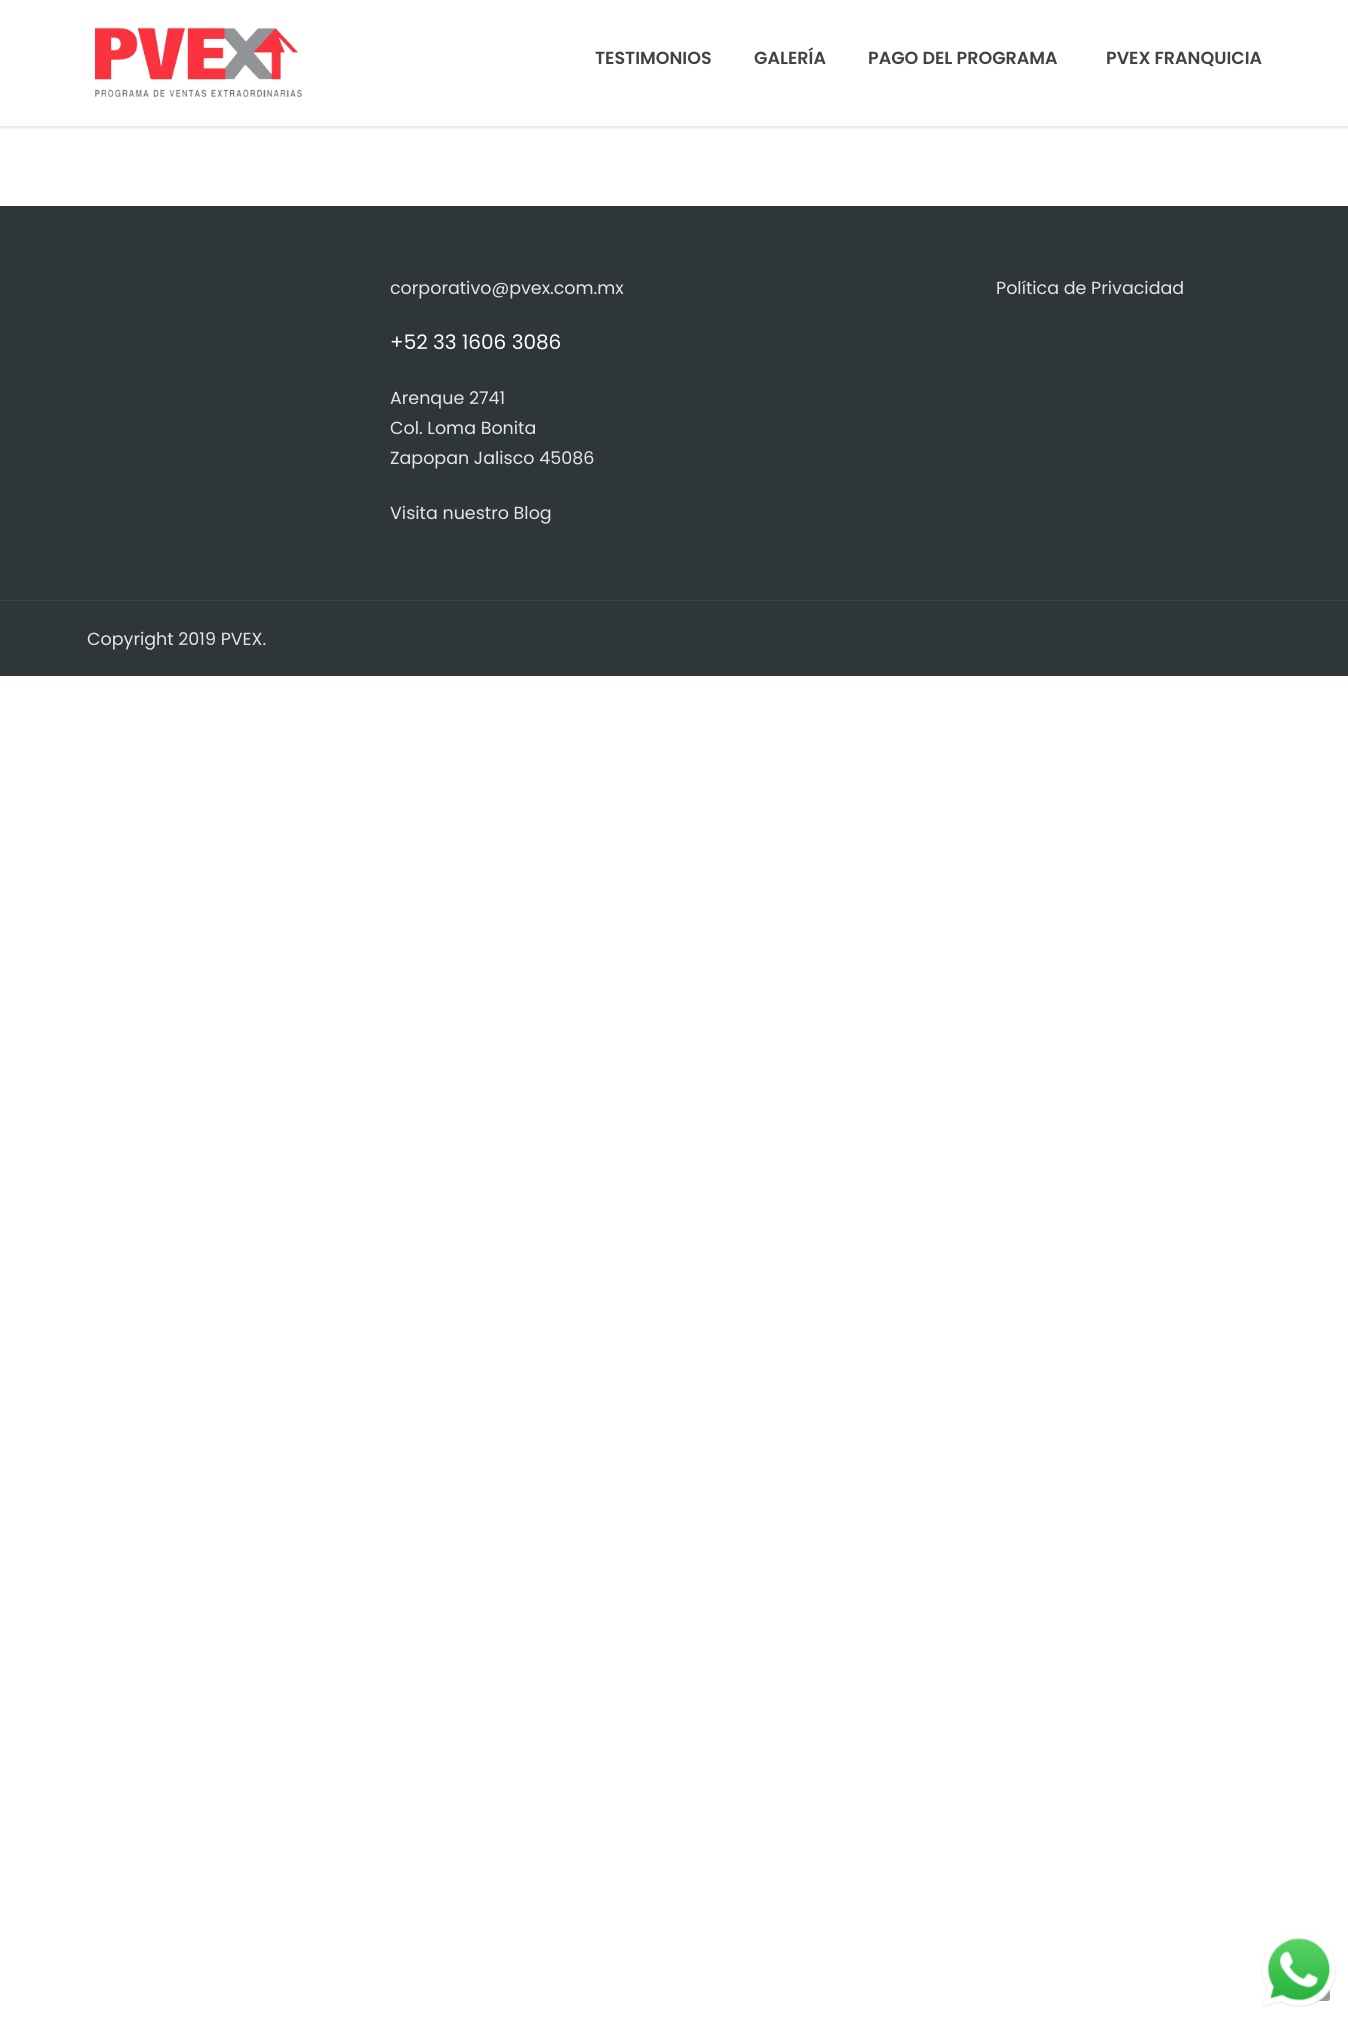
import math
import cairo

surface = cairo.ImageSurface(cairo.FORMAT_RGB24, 1348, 2019)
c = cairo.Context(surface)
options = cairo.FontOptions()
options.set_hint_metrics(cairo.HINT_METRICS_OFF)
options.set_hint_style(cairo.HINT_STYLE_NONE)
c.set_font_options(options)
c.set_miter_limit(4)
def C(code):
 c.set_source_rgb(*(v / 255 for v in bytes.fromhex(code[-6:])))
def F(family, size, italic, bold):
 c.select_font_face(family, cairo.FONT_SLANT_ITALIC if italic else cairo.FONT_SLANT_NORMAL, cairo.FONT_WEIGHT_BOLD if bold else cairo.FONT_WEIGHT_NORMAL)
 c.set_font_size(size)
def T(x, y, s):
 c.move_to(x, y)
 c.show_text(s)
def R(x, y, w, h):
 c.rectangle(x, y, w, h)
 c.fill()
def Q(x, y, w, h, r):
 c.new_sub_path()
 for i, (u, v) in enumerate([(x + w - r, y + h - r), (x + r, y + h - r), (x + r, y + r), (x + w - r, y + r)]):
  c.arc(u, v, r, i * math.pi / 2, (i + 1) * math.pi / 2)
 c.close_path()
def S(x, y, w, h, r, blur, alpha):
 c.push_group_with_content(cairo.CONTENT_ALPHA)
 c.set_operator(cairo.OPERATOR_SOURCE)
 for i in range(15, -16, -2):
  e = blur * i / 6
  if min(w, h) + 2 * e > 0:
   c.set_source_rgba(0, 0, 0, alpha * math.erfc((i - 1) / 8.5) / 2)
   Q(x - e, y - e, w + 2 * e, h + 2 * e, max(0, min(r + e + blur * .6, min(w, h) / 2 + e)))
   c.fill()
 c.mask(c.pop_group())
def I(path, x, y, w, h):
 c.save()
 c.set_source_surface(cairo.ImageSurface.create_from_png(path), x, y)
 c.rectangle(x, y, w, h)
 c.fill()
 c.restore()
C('ffffff')
c.paint()
c.save()
c.rectangle(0,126,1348,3)
c.clip()
C('000000')
S(0,1,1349,127,0,1,.1)
c.restore()
I('1.png',95,27,207,70)
F('Poppins SemiBold',17.5,0,0)
C('424242')
T(595,64,'TESTIMONIOS')
T(754,64,'GALERÍA')
T(868,64,'PAGO DEL PROGRAMA')
T(1106,64,'PVEX FRANQUICIA')
C('2e363a')
R(0,206,1348,394)
F('Poppins',17.5,0,0)
C('e5e5e5')
T(390,294,'corporativo@pvex.com.mx')
F('Poppins',20,0,0)
C('ffffff')
T(390,349,'+52 33 1606 3086')
F('Poppins',17.5,0,0)
C('e5e5e5')
T(390,404,'Arenque 2741')
T(390,434,'Col. Loma Bonita')
T(390,464,'Zapopan Jalisco 45086')
T(390,519,'Visita nuestro Blog')
T(996,294,'Política de Privacidad')
C('2e363a')
R(0,601,1348,75)
C('394348')
R(0,600,1348,1)
C('e5e5e5')
T(87,645,'Copyright 2019 PVEX.')
C('999999')
Q(1280,1951,50,50,2.5)
c.fill()
I('2.png',1261,1932,76,76)
surface.write_to_png('o.png')
